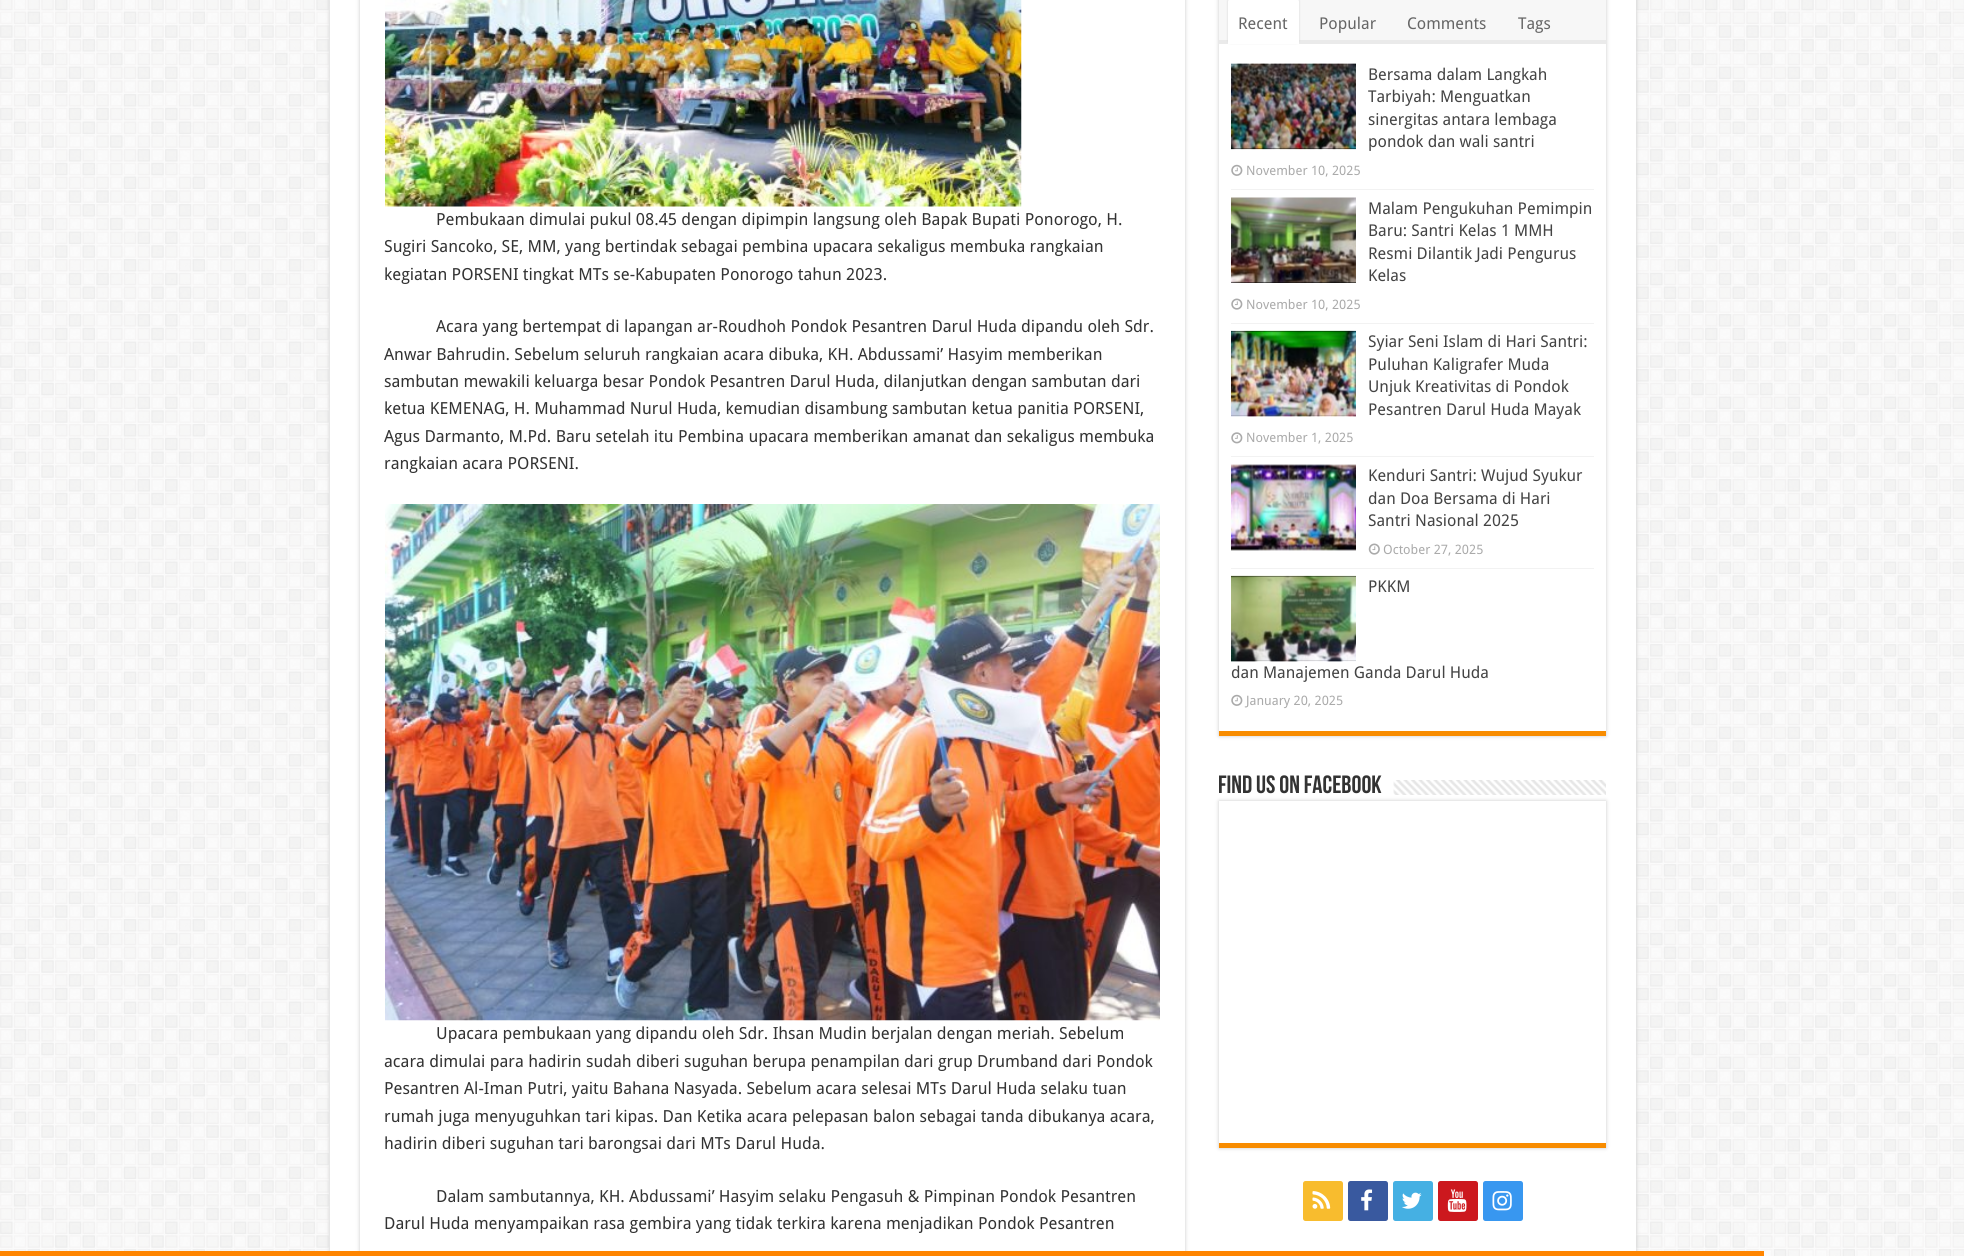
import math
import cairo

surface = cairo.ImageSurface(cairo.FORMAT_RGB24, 1964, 1256)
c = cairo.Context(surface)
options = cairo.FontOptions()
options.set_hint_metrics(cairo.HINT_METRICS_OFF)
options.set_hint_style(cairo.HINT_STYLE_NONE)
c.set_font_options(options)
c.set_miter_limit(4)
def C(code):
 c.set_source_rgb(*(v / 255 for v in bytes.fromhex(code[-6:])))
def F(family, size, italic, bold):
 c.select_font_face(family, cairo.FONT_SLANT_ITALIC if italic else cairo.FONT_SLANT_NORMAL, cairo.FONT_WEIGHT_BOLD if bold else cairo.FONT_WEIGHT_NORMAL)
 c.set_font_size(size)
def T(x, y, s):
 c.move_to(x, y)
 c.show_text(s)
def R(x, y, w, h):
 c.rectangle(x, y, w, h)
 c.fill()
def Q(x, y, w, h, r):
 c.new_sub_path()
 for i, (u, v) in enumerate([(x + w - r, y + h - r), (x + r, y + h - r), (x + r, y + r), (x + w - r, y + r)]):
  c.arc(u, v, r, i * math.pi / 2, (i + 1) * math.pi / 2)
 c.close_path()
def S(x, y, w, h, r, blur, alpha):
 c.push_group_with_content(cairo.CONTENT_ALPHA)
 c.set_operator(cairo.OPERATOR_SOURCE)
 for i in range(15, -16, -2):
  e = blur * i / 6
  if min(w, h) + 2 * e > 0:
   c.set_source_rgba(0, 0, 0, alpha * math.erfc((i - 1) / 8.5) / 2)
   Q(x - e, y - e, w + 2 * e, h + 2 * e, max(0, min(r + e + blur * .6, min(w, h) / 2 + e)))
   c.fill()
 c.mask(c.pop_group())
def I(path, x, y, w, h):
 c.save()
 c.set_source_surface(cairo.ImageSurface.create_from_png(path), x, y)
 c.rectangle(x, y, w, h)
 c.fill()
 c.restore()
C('ffffff')
c.paint()
I('1.png',0,0,1964,1256)
C('cacaca')
S(330,-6,1306,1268,0,2,1)
C('ffffff')
R(330,0,1306,1251)
c.save()
c.set_fill_rule(cairo.FILL_RULE_EVEN_ODD)
c.new_path()
c.move_to(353,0)
c.line_to(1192,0)
c.line_to(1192,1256)
c.line_to(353,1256)
c.close_path()
c.move_to(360,-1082)
c.line_to(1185,-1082)
c.line_to(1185,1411)
c.line_to(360,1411)
c.close_path()
c.clip()
C('cacaca')
S(360,-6,825,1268,0,2,1)
c.restore()
I('2.png',385,0,637,207)
F('Droid Sans',16.65,0,0)
C('333333')
T(436,225,'Pembukaan dimulai pukul 08.45 dengan dipimpin langsung oleh Bapak Bupati Ponorogo, H.')
T(384,252,'Sugiri Sancoko, SE, MM, yang bertindak sebagai pembina upacara sekaligus membuka rangkaian')
T(384,280,'kegiatan PORSENI tingkat MTs se-Kabupaten Ponorogo tahun 2023.')
T(436,332,'Acara yang bertempat di lapangan ar-Roudhoh Pondok Pesantren Darul Huda dipandu oleh Sdr.')
T(384,360,'Anwar Bahrudin. Sebelum seluruh rangkaian acara dibuka, KH. Abdussami’ Hasyim memberikan')
T(384,387,'sambutan mewakili keluarga besar Pondok Pesantren Darul Huda, dilanjutkan dengan sambutan dari')
T(384,414,'ketua KEMENAG, H. Muhammad Nurul Huda, kemudian disambung sambutan ketua panitia PORSENI,')
T(384,442,'Agus Darmanto, M.Pd. Baru setelah itu Pembina upacara memberikan amanat dan sekaligus membuka')
T(384,469,'rangkaian acara PORSENI.')
I('3.png',385,504,775,517)
T(436,1039,'Upacara pembukaan yang dipandu oleh Sdr. Ihsan Mudin berjalan dengan meriah. Sebelum')
T(384,1067,'acara dimulai para hadirin sudah diberi suguhan berupa penampilan dari grup Drumband dari Pondok')
T(384,1094,'Pesantren Al-Iman Putri, yaitu Bahana Nasyada. Sebelum acara selesai MTs Darul Huda selaku tuan')
T(384,1122,'rumah juga menyuguhkan tari kipas. Dan Ketika acara pelepasan balon sebagai tanda dibukanya acara,')
T(384,1149,'hadirin diberi suguhan tari barongsai dari MTs Darul Huda.')
T(436,1202,'Dalam sambutannya, KH. Abdussami’ Hasyim selaku Pengasuh & Pimpinan Pondok Pesantren')
T(384,1229,'Darul Huda menyampaikan rasa gembira yang tidak terkira karena menjadikan Pondok Pesantren')
c.save()
c.set_fill_rule(cairo.FILL_RULE_EVEN_ODD)
c.new_path()
c.move_to(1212,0)
c.line_to(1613,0)
c.line_to(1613,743)
c.line_to(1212,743)
c.close_path()
c.move_to(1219,-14)
c.line_to(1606,-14)
c.line_to(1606,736)
c.line_to(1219,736)
c.close_path()
c.clip()
C('cacaca')
S(1219,-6,387,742,0,2,1)
c.restore()
C('f88c00')
R(1219,731,387,5)
C('f7f7f7')
R(1219,0,387,40)
C('eaeaea')
R(1219,40,387,4)
C('d4d4d4')
S(1228,-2,71,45,2.5,1,1)
C('ffffff')
c.new_path()
c.move_to(1230.5,-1)
c.line_to(1296.5,-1)
c.curve_to(1298,-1,1299,0,1299,1.5)
c.line_to(1299,44)
c.line_to(1228,44)
c.line_to(1228,1.5)
c.curve_to(1228,0,1229,-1,1230.5,-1)
c.close_path()
c.fill()
F('Droid Sans',16.25,0,0)
C('666666')
T(1238,29,'Recent')
T(1319,29,'Popular')
T(1407,29,'Comments')
T(1518,29,'Tags')
C('f2f2f2')
R(1231,189,363,1)
C('000000')
R(1231,64,125,85)
I('4.png',1231,63,125,87)
C('444444')
T(1368,80,'Bersama dalam Langkah')
T(1368,102,'Tarbiyah: Menguatkan')
T(1368,125,'sinergitas antara lembaga')
T(1368,147,'pondok dan wali santri')
I('5.png',1231,164,12,12)
F('Droid Sans',13,0,0)
C('aaaaaa')
T(1246,175,'November 10, 2025')
C('f2f2f2')
R(1231,323,363,1)
C('000000')
R(1231,282,125,1)
I('6.png',1231,197,125,86)
F('Droid Sans',16.25,0,0)
C('444444')
T(1368,214,'Malam Pengukuhan Pemimpin')
T(1368,236,'Baru: Santri Kelas 1 MMH')
T(1368,259,'Resmi Dilantik Jadi Pengurus')
T(1368,281,'Kelas')
I('7.png',1231,298,12,12)
F('Droid Sans',13,0,0)
C('aaaaaa')
T(1246,309,'November 10, 2025')
C('f2f2f2')
R(1231,456,363,1)
C('000000')
R(1231,331,125,85)
I('8.png',1231,330,125,87)
F('Droid Sans',16.25,0,0)
C('444444')
T(1368,347,'Syiar Seni Islam di Hari Santri:')
T(1368,370,'Puluhan Kaligrafer Muda')
T(1368,392,'Unjuk Kreativitas di Pondok')
T(1368,415,'Pesantren Darul Huda Mayak')
I('9.png',1231,432,12,12)
F('Droid Sans',13,0,0)
C('aaaaaa')
T(1246,442,'November 1, 2025')
C('f2f2f2')
R(1231,568,363,1)
I('10.png',1231,464,125,87)
F('Droid Sans',16.25,0,0)
C('444444')
T(1368,481,'Kenduri Santri: Wujud Syukur')
T(1368,504,'dan Doa Bersama di Hari')
T(1368,526,'Santri Nasional 2025')
I('11.png',1368,543,12,12)
F('Droid Sans',13,0,0)
C('aaaaaa')
T(1383,554,'October 27, 2025')
C('000000')
R(1231,576,125,85)
I('12.png',1231,575,125,87)
F('Droid Sans',16.25,0,0)
C('444444')
T(1368,592,'PKKM')
T(1231,678,'dan Manajemen Ganda Darul Huda')
I('5.png',1231,694,12,12)
F('Droid Sans',13,0,0)
C('aaaaaa')
T(1246,705,'January 20, 2025')
F('Bebas Neue',25,0,1)
C('333333')
T(1218,793,'Find us on Facebook')
C('cacaca')
S(1219,801,387,347,0,2,1)
I('13.png',1393,780,213,15)
C('ffffff')
R(1219,801,387,342)
C('f88c00')
R(1219,1143,387,5)
C('f8bc2e')
Q(1303,1181,40,40,2.5)
c.fill()
I('14.png',1312,1191,19,18)
C('39599f')
Q(1348,1181,40,40,2.5)
c.fill()
I('15.png',1361,1189,12,22)
C('45b0e3')
Q(1393,1181,40,40,2.5)
c.fill()
I('16.png',1402,1192,20,17)
C('cc181e')
Q(1438,1181,40,40,2.5)
c.fill()
I('17.png',1447,1189,20,23)
C('3897f0')
Q(1483,1181,40,40,2.5)
c.fill()
I('18.png',1492,1191,20,20)
C('ff8500')
R(0,1251,1764,5)
surface.write_to_png('o.png')
